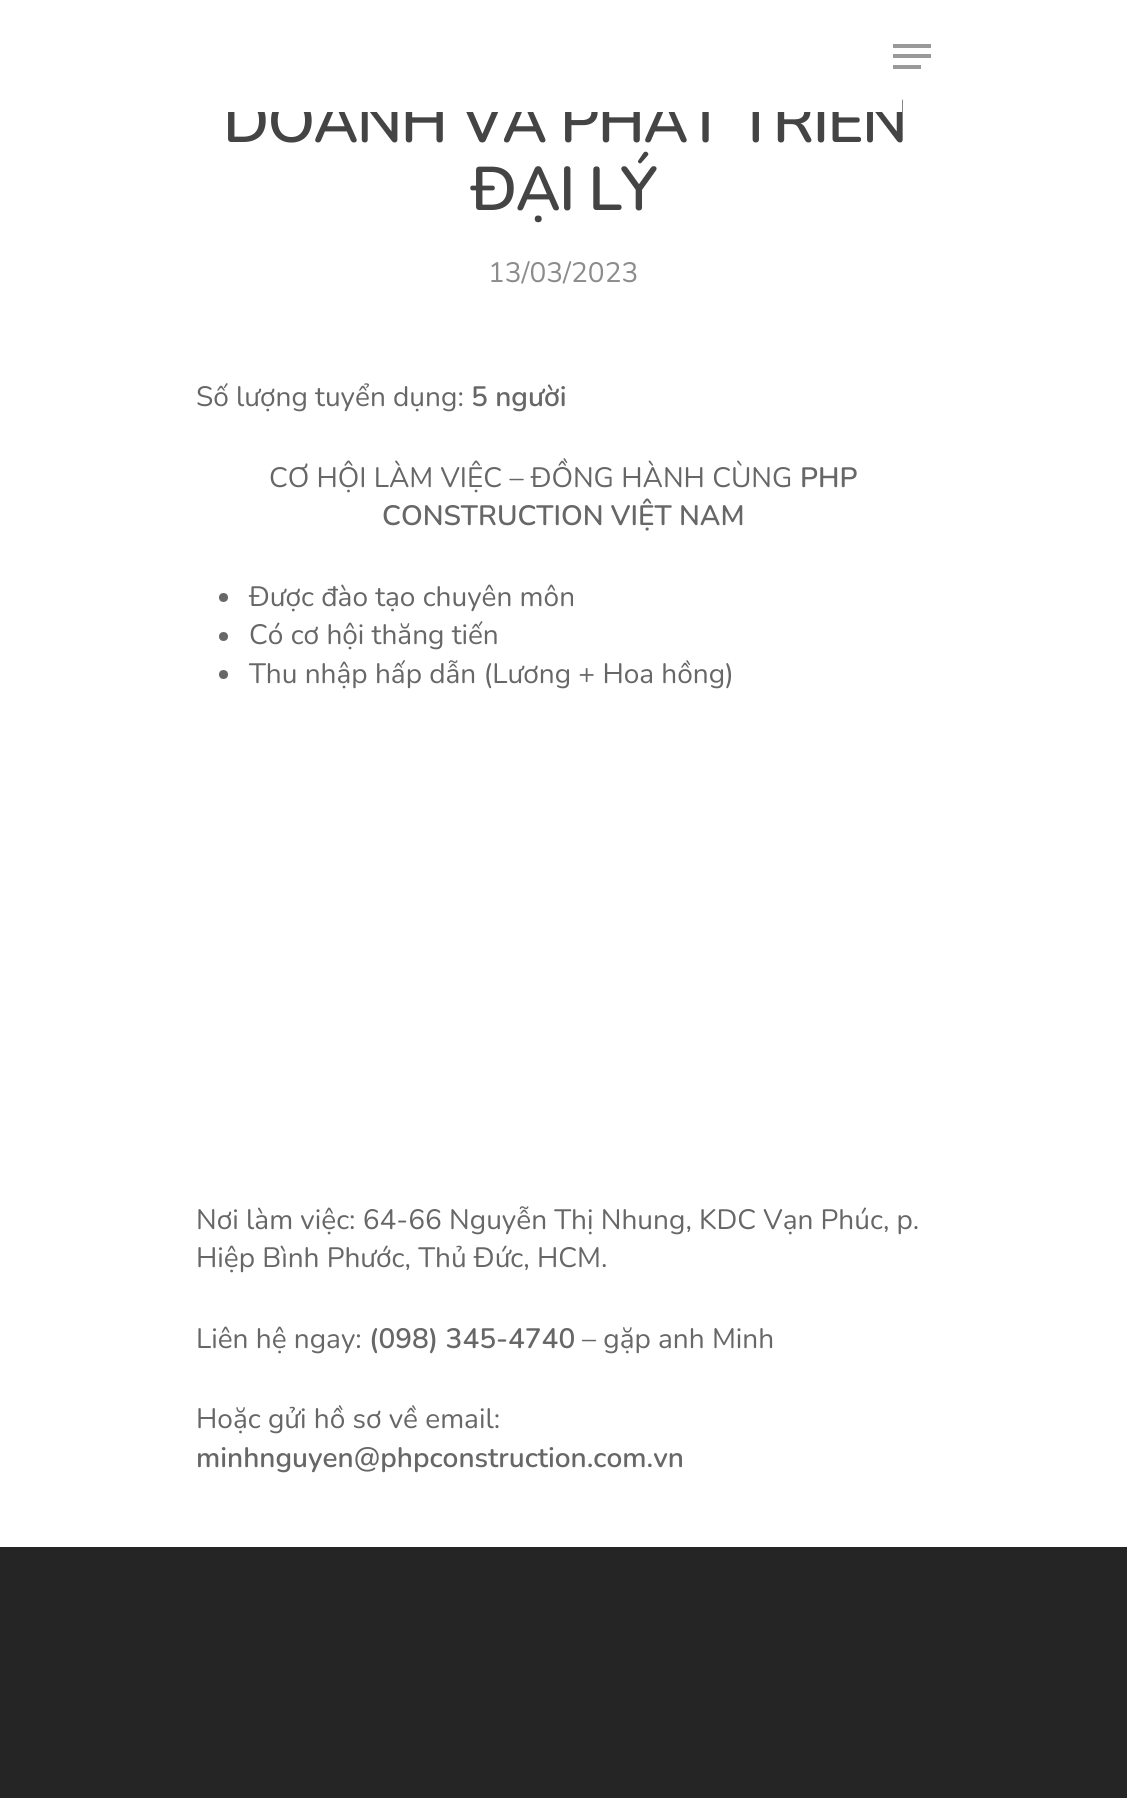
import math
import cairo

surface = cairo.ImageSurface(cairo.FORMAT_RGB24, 1127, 1798)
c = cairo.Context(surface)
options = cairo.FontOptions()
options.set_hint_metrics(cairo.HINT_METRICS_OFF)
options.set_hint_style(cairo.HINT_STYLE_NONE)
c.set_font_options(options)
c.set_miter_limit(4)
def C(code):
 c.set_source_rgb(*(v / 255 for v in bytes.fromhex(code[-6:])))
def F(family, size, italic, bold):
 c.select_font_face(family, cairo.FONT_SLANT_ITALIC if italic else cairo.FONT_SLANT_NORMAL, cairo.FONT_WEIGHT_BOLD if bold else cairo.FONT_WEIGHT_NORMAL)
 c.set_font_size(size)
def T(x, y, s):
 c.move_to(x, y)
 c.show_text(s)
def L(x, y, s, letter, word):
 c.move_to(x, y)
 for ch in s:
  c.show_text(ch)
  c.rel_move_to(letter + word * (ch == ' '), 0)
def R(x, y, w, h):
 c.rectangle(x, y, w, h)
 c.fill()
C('ffffff')
c.paint()
F('Nunito SemiBold',61.5,0,0)
C('444444')
L(223,142,'DOANH VÀ PHÁT TRIỂN',-1.75,0)
C('ffffff')
R(227,79,675,33)
C('999999')
R(893,44,38,4)
R(893,65,28,4)
R(893,54,38,4)
C('444444')
L(471,210,'ĐẠI LÝ',-1.75,0)
F('Nunito',28,0,0)
C('8c8c8c')
T(488,282,'13/03/2023')
C('676767')
T(196,406,'Số lượng tuyển dụng:')
F('Nunito SemiBold',28,0,0)
T(471,406,'5 người')
F('Nunito',28,0,0)
T(269,487,'CƠ HỘI LÀM VIỆC – ĐỒNG HÀNH CÙNG')
F('Nunito SemiBold',28,0,0)
T(800,487,'PHP')
T(382,525,'CONSTRUCTION VIỆT NAM')
c.new_path()
c.arc(223.5,597.5,4.5,0,2 * math.pi)
c.fill()
F('Nunito',28,0,0)
T(249,606,'Được đào tạo chuyên môn')
c.new_path()
c.arc(223.5,636.5,4.5,0,2 * math.pi)
c.fill()
T(249,644,'Có cơ hội thăng tiến')
c.new_path()
c.arc(223.5,674.5,4.5,0,2 * math.pi)
c.fill()
T(249,683,'Thu nhập hấp dẫn (Lương + Hoa hồng)')
T(196,1229,'Nơi làm việc: 64-66 Nguyễn Thị Nhung, KDC Vạn Phúc, p.')
T(196,1267,'Hiệp Bình Phước, Thủ Đức, HCM.')
T(196,1348,'Liên hệ ngay:')
F('Nunito SemiBold',28,0,0)
T(369,1348,'(098) 345-4740')
F('Nunito',28,0,0)
T(582,1348,'– gặp anh Minh')
T(196,1428,'Hoặc gửi hồ sơ về email:')
F('Nunito SemiBold',28,0,0)
T(196,1467,'minhnguyen@phpconstruction.com.vn')
C('252525')
R(0,1547,1127,251)
surface.write_to_png('o.png')
